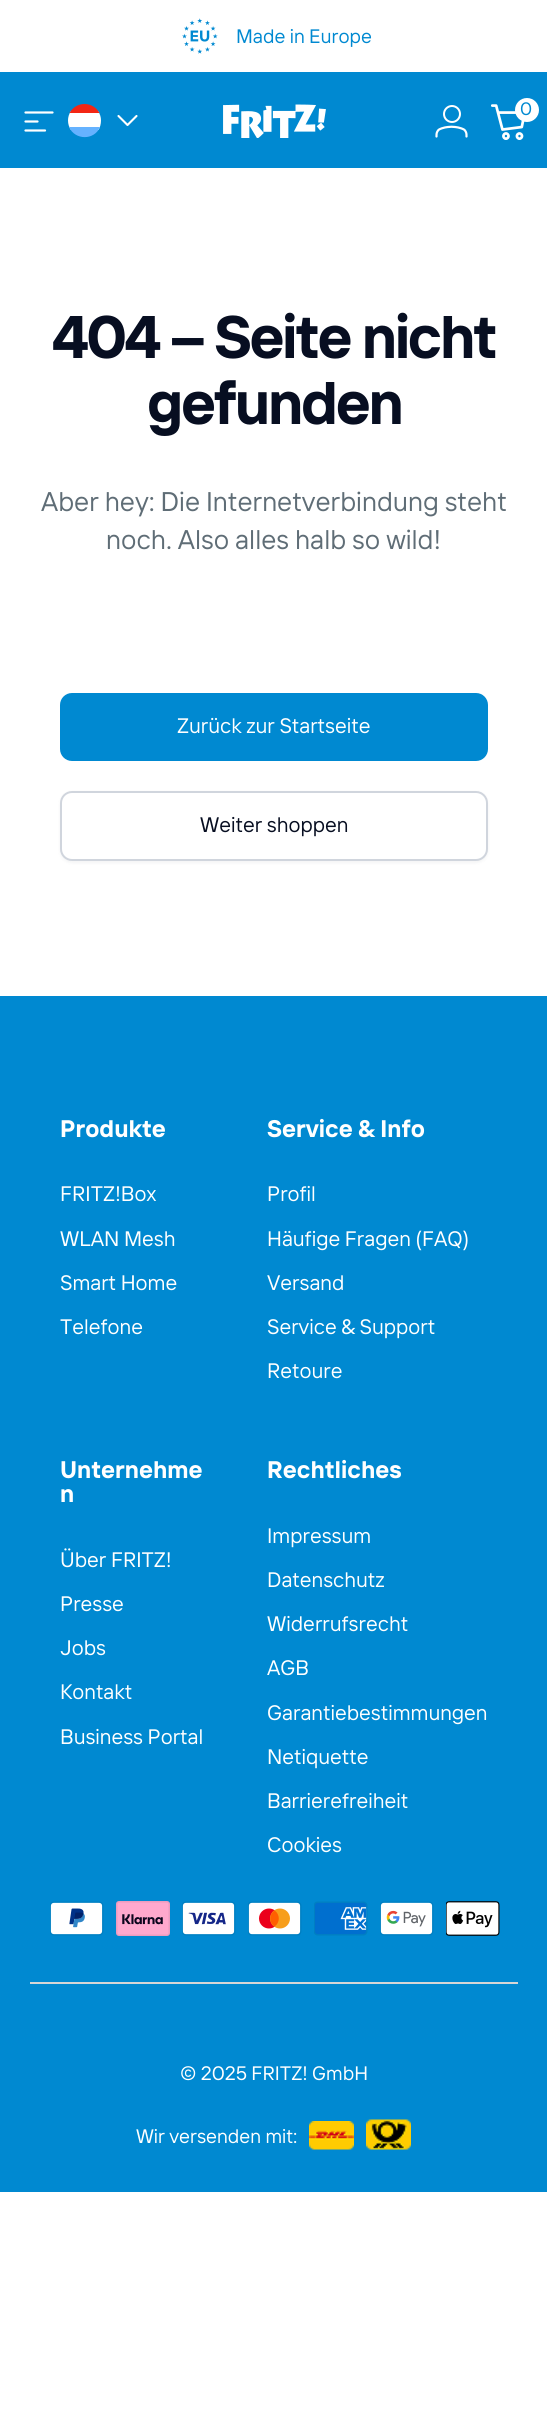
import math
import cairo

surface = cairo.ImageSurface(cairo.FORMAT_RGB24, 547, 2421)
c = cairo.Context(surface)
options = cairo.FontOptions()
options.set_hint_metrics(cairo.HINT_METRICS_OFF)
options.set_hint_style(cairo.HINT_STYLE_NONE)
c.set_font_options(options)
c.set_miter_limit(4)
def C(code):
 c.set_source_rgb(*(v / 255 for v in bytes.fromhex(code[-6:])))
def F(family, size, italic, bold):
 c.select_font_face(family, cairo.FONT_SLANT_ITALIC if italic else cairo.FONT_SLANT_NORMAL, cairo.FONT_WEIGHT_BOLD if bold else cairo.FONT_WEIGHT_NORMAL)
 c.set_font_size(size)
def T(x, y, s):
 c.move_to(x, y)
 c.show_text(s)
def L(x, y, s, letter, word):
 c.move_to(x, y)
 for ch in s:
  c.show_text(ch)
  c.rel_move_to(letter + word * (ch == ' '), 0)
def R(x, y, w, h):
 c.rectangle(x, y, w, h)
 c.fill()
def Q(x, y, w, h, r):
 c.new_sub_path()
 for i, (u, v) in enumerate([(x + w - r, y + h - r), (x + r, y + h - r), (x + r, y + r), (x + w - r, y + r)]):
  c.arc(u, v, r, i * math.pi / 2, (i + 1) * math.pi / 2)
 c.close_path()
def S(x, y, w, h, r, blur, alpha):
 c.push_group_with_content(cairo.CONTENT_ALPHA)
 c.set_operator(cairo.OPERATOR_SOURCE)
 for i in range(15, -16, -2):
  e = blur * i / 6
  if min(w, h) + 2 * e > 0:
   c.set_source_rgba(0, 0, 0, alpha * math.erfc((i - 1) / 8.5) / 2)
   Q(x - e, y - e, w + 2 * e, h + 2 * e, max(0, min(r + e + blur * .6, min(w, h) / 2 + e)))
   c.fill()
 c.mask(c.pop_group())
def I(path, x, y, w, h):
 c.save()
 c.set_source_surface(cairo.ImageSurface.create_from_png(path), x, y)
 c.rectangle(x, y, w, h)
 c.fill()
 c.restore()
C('ffffff')
c.paint()
I('1.png',182,18,36,36)
F('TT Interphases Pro',19.5,0,0)
C('0089d1')
T(236,43,'Made in Europe')
R(0,72,547,96)
c.new_path()
c.move_to(25.5,112.5)
c.line_to(52.5,112.5)
c.move_to(25.5,121.5)
c.line_to(37.5,121.5)
c.move_to(25.5,130.5)
c.line_to(45,130.5)
C('ffffff')
c.set_line_width(2.2)
c.set_line_cap(cairo.LINE_CAP_ROUND)
c.stroke()
c.new_path()
c.move_to(101,120.5)
c.curve_to(101,124,100,127.5,98.5,130)
c.line_to(71,130)
c.curve_to(67,124.5,67,116.5,71,111)
c.line_to(98,111)
c.curve_to(100,114,101,117,101,120.5)
c.close_path()
c.fill()
C('65b2ff')
c.new_path()
c.move_to(100,127)
c.line_to(69,127)
c.curve_to(75,140.5,94.5,140.5,100,127)
c.close_path()
c.fill()
C('f32614')
c.new_path()
c.move_to(99.5,113)
c.line_to(69.5,113)
c.curve_to(76,101,93,101,99.5,113)
c.close_path()
c.fill()
c.new_path()
c.move_to(118.5,116)
c.line_to(127.5,125)
c.line_to(136.5,116)
C('ffffff')
c.set_line_width(2.1)
c.set_line_join(cairo.LINE_JOIN_ROUND)
c.stroke()
I('2.png',223,104,103,34)
I('3.png',435,105,33,33)
I('4.png',491,104,34,36)
c.arc(527,110,12,0,2 * math.pi)
c.fill()
F('TT Interphases Pro',18,0,0)
C('0089d1')
T(520,115,'0')
F('TT Interphases Pro',60,0,1)
C('070e21')
L(52,358,'404 – Seite nicht',-2.4,0)
L(147,424,'gefunden',-2.4,0)
F('TT Interphases Pro',27,0,0)
C('5f6d76')
T(41,511,'Aber hey: Die Internetverbindung steht')
T(106,549,'noch. Also alles halb so wild!')
C('0089d1')
Q(61,694,426,66,11)
c.fill_preserve()
c.set_line_width(2)
c.set_line_cap(cairo.LINE_CAP_BUTT)
c.set_line_join(cairo.LINE_JOIN_MITER)
c.stroke()
F('TT Interphases Pro',21,0,0)
C('ffffff')
T(177,733,'Zurück zur Startseite')
C('101828')
S(60,792,428,71,12,1.5,.05)
C('ffffff')
Q(61,792,426,68,11)
c.fill_preserve()
C('d0d5dd')
c.stroke()
C('070e21')
T(200,832,'Weiter shoppen')
C('0089d1')
R(0,996,547,1196)
F('TT Interphases Pro',24,0,1)
C('ffffff')
T(60,1137,'Produkte')
F('TT Interphases Pro',21,0,0)
T(60,1201,'FRITZ!Box')
T(60,1246,'WLAN Mesh')
T(60,1290,'Smart Home')
T(60,1334,'Telefone')
F('TT Interphases Pro',24,0,1)
T(267,1137,'Service & Info')
F('TT Interphases Pro',21,0,0)
T(267,1201,'Profil')
T(267,1246,'Häufige Fragen (FAQ)')
T(267,1290,'Versand')
T(267,1334,'Service & Support')
T(267,1378,'Retoure')
F('TT Interphases Pro',24,0,1)
T(60,1478,'Unternehme')
T(60,1502,'n')
F('TT Interphases Pro',21,0,0)
T(60,1567,'Über FRITZ!')
T(60,1611,'Presse')
T(60,1655,'Jobs')
T(60,1699,'Kontakt')
T(60,1744,'Business Portal')
F('TT Interphases Pro',24,0,1)
T(267,1478,'Rechtliches')
F('TT Interphases Pro',21,0,0)
T(267,1543,'Impressum')
T(267,1587,'Datenschutz')
T(267,1631,'Widerrufsrecht')
T(267,1675,'AGB')
T(267,1720,'Garantiebestimmungen')
T(267,1764,'Netiquette')
T(267,1808,'Barrierefreiheit')
T(267,1852,'Cookies')
I('5.png',50,1901,54,35)
I('6.png',116,1901,54,35)
I('7.png',182,1901,54,35)
I('8.png',248,1901,54,35)
I('9.png',314,1901,54,35)
I('10.png',380,1901,54,35)
I('11.png',446,1901,54,35)
C('d6d6d6')
R(30,1982,488,2)
F('TT Interphases Pro',19.5,0,0)
C('ffffff')
T(180,2080,'© 2025 FRITZ! GmbH')
T(136,2143,'Wir versenden mit:')
I('12.png',309,2121,45,29)
I('13.png',366,2119,45,31)
surface.write_to_png('o.png')
